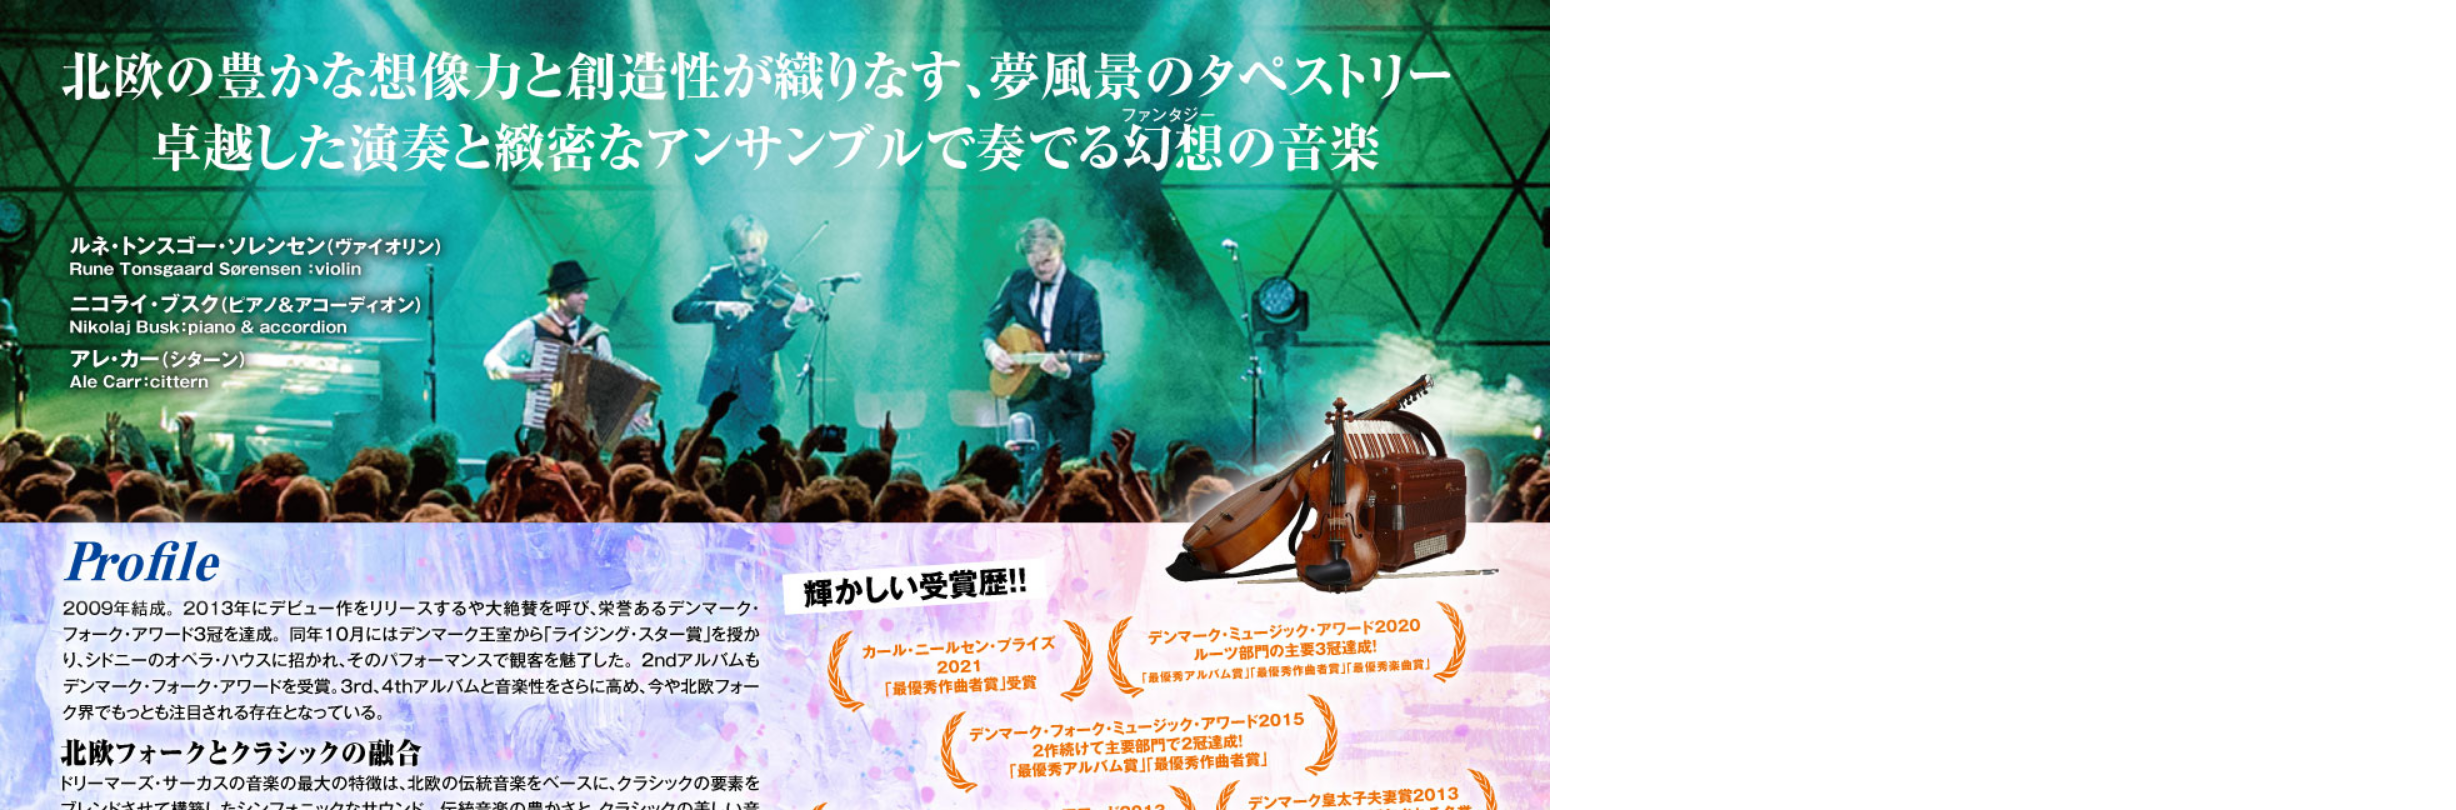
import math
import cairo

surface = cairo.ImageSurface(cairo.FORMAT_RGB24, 2456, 810)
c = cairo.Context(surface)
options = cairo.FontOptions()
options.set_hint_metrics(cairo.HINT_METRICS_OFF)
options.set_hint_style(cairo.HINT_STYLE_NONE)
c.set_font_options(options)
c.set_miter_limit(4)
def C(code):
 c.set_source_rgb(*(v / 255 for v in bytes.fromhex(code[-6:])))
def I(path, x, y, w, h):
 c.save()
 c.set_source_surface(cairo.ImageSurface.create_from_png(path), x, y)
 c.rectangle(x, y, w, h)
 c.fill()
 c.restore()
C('ffffff')
c.paint()
I('1.png',0,0,1550,810)
surface.write_to_png('o.png')
